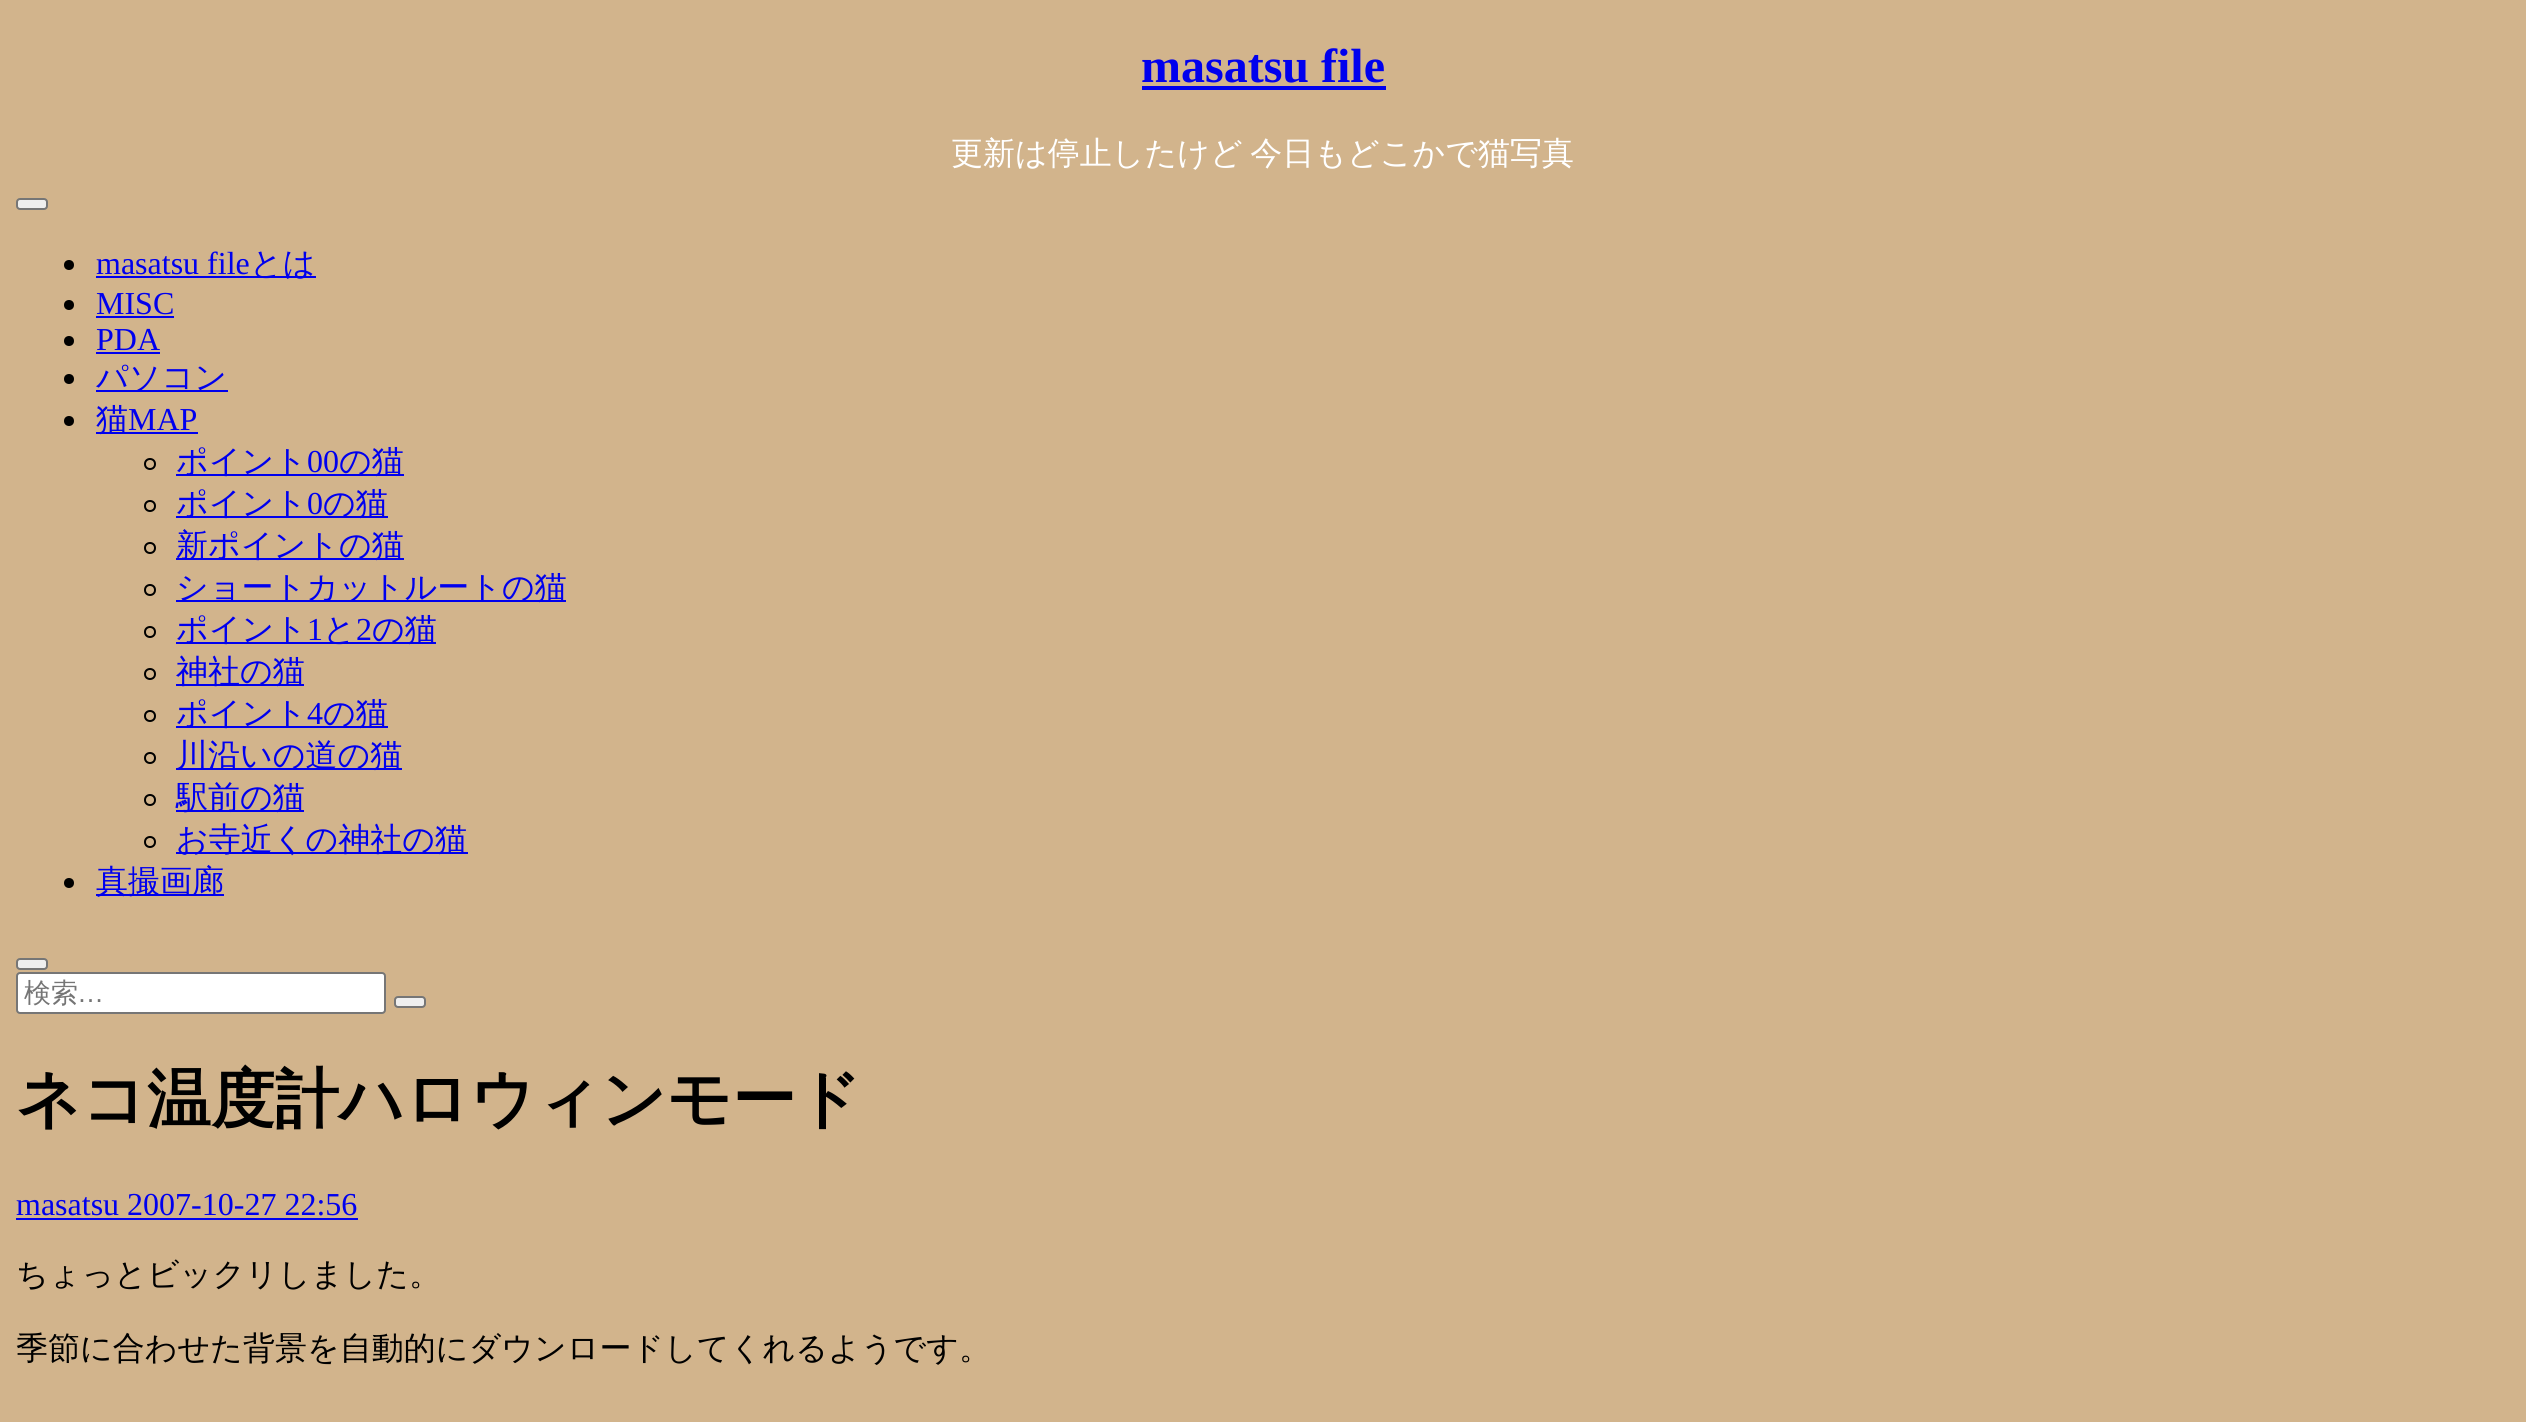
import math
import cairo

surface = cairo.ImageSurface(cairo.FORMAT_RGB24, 2526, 1422)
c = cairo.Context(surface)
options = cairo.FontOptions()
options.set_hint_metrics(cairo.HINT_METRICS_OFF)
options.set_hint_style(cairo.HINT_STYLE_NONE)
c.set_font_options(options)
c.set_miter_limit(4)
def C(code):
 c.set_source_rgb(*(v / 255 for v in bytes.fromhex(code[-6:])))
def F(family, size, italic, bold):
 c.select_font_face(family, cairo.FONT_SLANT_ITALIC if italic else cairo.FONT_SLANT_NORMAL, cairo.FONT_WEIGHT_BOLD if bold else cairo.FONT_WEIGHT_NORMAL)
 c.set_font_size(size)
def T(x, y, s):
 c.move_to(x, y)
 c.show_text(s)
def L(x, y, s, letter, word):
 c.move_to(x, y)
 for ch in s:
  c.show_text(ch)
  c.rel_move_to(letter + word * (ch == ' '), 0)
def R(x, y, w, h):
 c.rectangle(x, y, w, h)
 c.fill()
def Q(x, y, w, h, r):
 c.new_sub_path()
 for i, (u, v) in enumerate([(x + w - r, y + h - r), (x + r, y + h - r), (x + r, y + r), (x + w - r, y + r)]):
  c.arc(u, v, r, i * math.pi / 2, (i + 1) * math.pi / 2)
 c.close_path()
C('d2b48c')
c.paint()
F('Liberation Serif',48,0,1)
C('0000ee')
T(1141,82,'masatsu file')
R(1142,86,244,4)
F('WenQuanYi Zen Hei Medium',32,0,0)
C('ffffff')
L(951,164,'更新は停止したけど 今日もどこかで猫写真',0,-2)
C('efefef')
Q(17,199,30,10,3)
c.fill_preserve()
C('767676')
c.stroke()
C('000000')
c.arc(69,265,5,0,2 * math.pi)
c.fill()
F('Liberation Serif',32,0,0)
C('0000ee')
T(96,274,'masatsu file')
R(96,276,220,2)
F('WenQuanYi Zen Hei Medium',32,0,0)
T(250,274,'とは')
C('000000')
c.new_path()
c.arc(69,305,5,0,2 * math.pi)
c.fill()
F('Liberation Serif',32,0,0)
C('0000ee')
T(96,314,'MISC')
R(96,316,78,2)
C('000000')
c.new_path()
c.arc(69,341,5,0,2 * math.pi)
c.fill()
C('0000ee')
T(96,350,'PDA')
R(96,352,64,2)
C('000000')
c.new_path()
c.arc(69,379,5,0,2 * math.pi)
c.fill()
C('0000ee')
R(96,390,132,2)
F('WenQuanYi Zen Hei Medium',32,0,0)
T(96,388,'パソコン')
C('000000')
c.new_path()
c.arc(69,421,5,0,2 * math.pi)
c.fill()
C('0000ee')
R(96,432,102,2)
T(96,430,'猫')
F('Liberation Serif',32,0,0)
T(128,430,'MAP')
c.new_path()
c.arc(150,464,5,0,2 * math.pi)
C('000000')
c.stroke()
C('0000ee')
R(176,474,228,2)
F('WenQuanYi Zen Hei Medium',32,0,0)
T(176,472,'ポイント')
F('Liberation Serif',32,0,0)
T(307,472,'00')
F('WenQuanYi Zen Hei Medium',32,0,0)
T(339,472,'の猫')
c.new_path()
c.arc(150,506,5,0,2 * math.pi)
C('000000')
c.stroke()
C('0000ee')
R(176,516,212,2)
T(176,514,'ポイント')
F('Liberation Serif',32,0,0)
T(307,514,'0')
F('WenQuanYi Zen Hei Medium',32,0,0)
T(323,514,'の猫')
c.new_path()
c.arc(150,548,5,0,2 * math.pi)
C('000000')
c.stroke()
C('0000ee')
R(176,558,228,2)
T(176,556,'新ポイントの猫')
c.new_path()
c.arc(150,590,5,0,2 * math.pi)
C('000000')
c.stroke()
C('0000ee')
R(176,600,390,2)
T(176,598,'ショートカットルートの猫')
c.new_path()
c.arc(150,632,5,0,2 * math.pi)
C('000000')
c.stroke()
C('0000ee')
R(176,642,260,2)
T(176,640,'ポイント')
F('Liberation Serif',32,0,0)
T(307,640,'1')
F('WenQuanYi Zen Hei Medium',32,0,0)
T(323,640,'と')
F('Liberation Serif',32,0,0)
T(356,640,'2')
F('WenQuanYi Zen Hei Medium',32,0,0)
T(372,640,'の猫')
c.new_path()
c.arc(150,674,5,0,2 * math.pi)
C('000000')
c.stroke()
C('0000ee')
R(176,684,128,2)
T(176,682,'神社の猫')
c.new_path()
c.arc(150,716,5,0,2 * math.pi)
C('000000')
c.stroke()
C('0000ee')
R(176,726,212,2)
T(176,724,'ポイント')
F('Liberation Serif',32,0,0)
T(307,724,'4')
F('WenQuanYi Zen Hei Medium',32,0,0)
T(323,724,'の猫')
c.new_path()
c.arc(150,758,5,0,2 * math.pi)
C('000000')
c.stroke()
C('0000ee')
R(176,768,226,2)
T(176,766,'川沿いの道の猫')
c.new_path()
c.arc(150,800,5,0,2 * math.pi)
C('000000')
c.stroke()
C('0000ee')
R(176,810,128,2)
T(176,808,'駅前の猫')
c.new_path()
c.arc(150,842,5,0,2 * math.pi)
C('000000')
c.stroke()
C('0000ee')
R(176,852,292,2)
T(176,850,'お寺近くの神社の猫')
C('000000')
c.new_path()
c.arc(69,883,5,0,2 * math.pi)
c.fill()
C('0000ee')
R(96,894,128,2)
T(96,892,'真撮画廊')
C('efefef')
Q(17,959,30,10,3)
c.fill_preserve()
C('767676')
c.stroke()
C('ffffff')
Q(17,973,368,40,3)
c.fill_preserve()
C('767676')
c.stroke()
F('WenQuanYi Zen Hei Medium',27,0,0)
C('757575')
T(24,1002,'検索')
F('Liberation Sans',27,0,0)
T(77,1002,'…')
C('efefef')
Q(395,997,30,10,3)
c.fill_preserve()
C('767676')
c.stroke()
F('WenQuanYi Zen Hei',64,0,1)
C('000000')
T(16,1121,'ネコ温度計ハロウィンモード')
F('Liberation Serif',32,0,0)
C('0000ee')
T(16,1215,'masatsu 2007-10-27 22:56')
R(16,1218,342,2)
F('WenQuanYi Zen Hei Medium',32,0,0)
C('000000')
T(16,1285,'ちょっとビックリしました。')
T(16,1359,'季節に合わせた背景を自動的にダウンロードしてくれるようです。')
surface.write_to_png('o.png')
